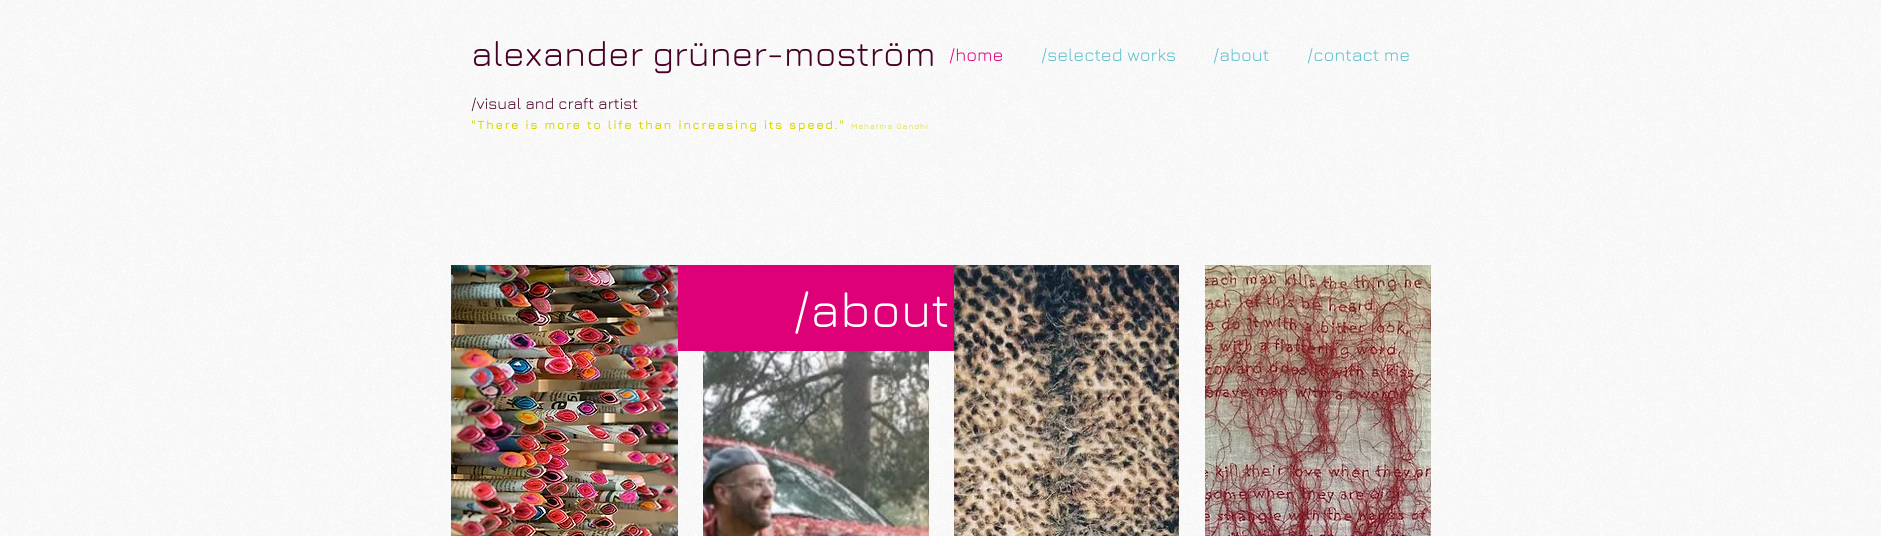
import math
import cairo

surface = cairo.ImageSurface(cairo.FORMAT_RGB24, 1881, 536)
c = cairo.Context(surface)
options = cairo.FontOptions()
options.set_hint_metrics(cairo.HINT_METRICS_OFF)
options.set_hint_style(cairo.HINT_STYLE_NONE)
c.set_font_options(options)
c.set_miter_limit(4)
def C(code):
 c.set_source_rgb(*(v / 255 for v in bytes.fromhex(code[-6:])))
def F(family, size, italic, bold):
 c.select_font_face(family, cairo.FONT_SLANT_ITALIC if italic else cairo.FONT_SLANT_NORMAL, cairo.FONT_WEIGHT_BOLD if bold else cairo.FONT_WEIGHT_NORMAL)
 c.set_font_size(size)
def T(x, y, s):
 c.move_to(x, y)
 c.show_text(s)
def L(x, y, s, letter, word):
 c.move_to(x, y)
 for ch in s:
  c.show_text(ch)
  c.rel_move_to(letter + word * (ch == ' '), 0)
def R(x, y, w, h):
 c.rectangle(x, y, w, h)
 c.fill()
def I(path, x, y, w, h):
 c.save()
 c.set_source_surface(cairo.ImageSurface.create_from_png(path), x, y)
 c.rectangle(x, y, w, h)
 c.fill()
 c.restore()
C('ffffff')
c.paint()
I('1.png',0,0,1881,536)
F('Jura',36,0,0)
C('490027')
T(471,66,'alexander grüner-moström')
F('Jura',16,0,0)
T(471,109,'/visual and craft artist')
F('Jura',18,0,0)
C('dd0076')
T(949,61,'/home')
C('5dc0cc')
T(1041,61,'/selected works')
T(1213,61,'/about')
T(1307,61,'/contact me')
F('Jura',12,0,1)
C('dbd700')
L(471,129,'"There is more to life than increasing its speed."',1.45,0)
F('Jura',8,0,0)
L(851,129,'Mahatma Gandhi',1,0)
I('2.png',451,265,227,271)
C('dd0076')
R(678,265,276,86)
F('Jura',50,0,0)
C('ffffff')
T(793,327,'/about')
I('3.png',954,265,225,271)
I('4.png',1205,265,226,271)
I('5.png',703,351,226,185)
surface.write_to_png('o.png')
